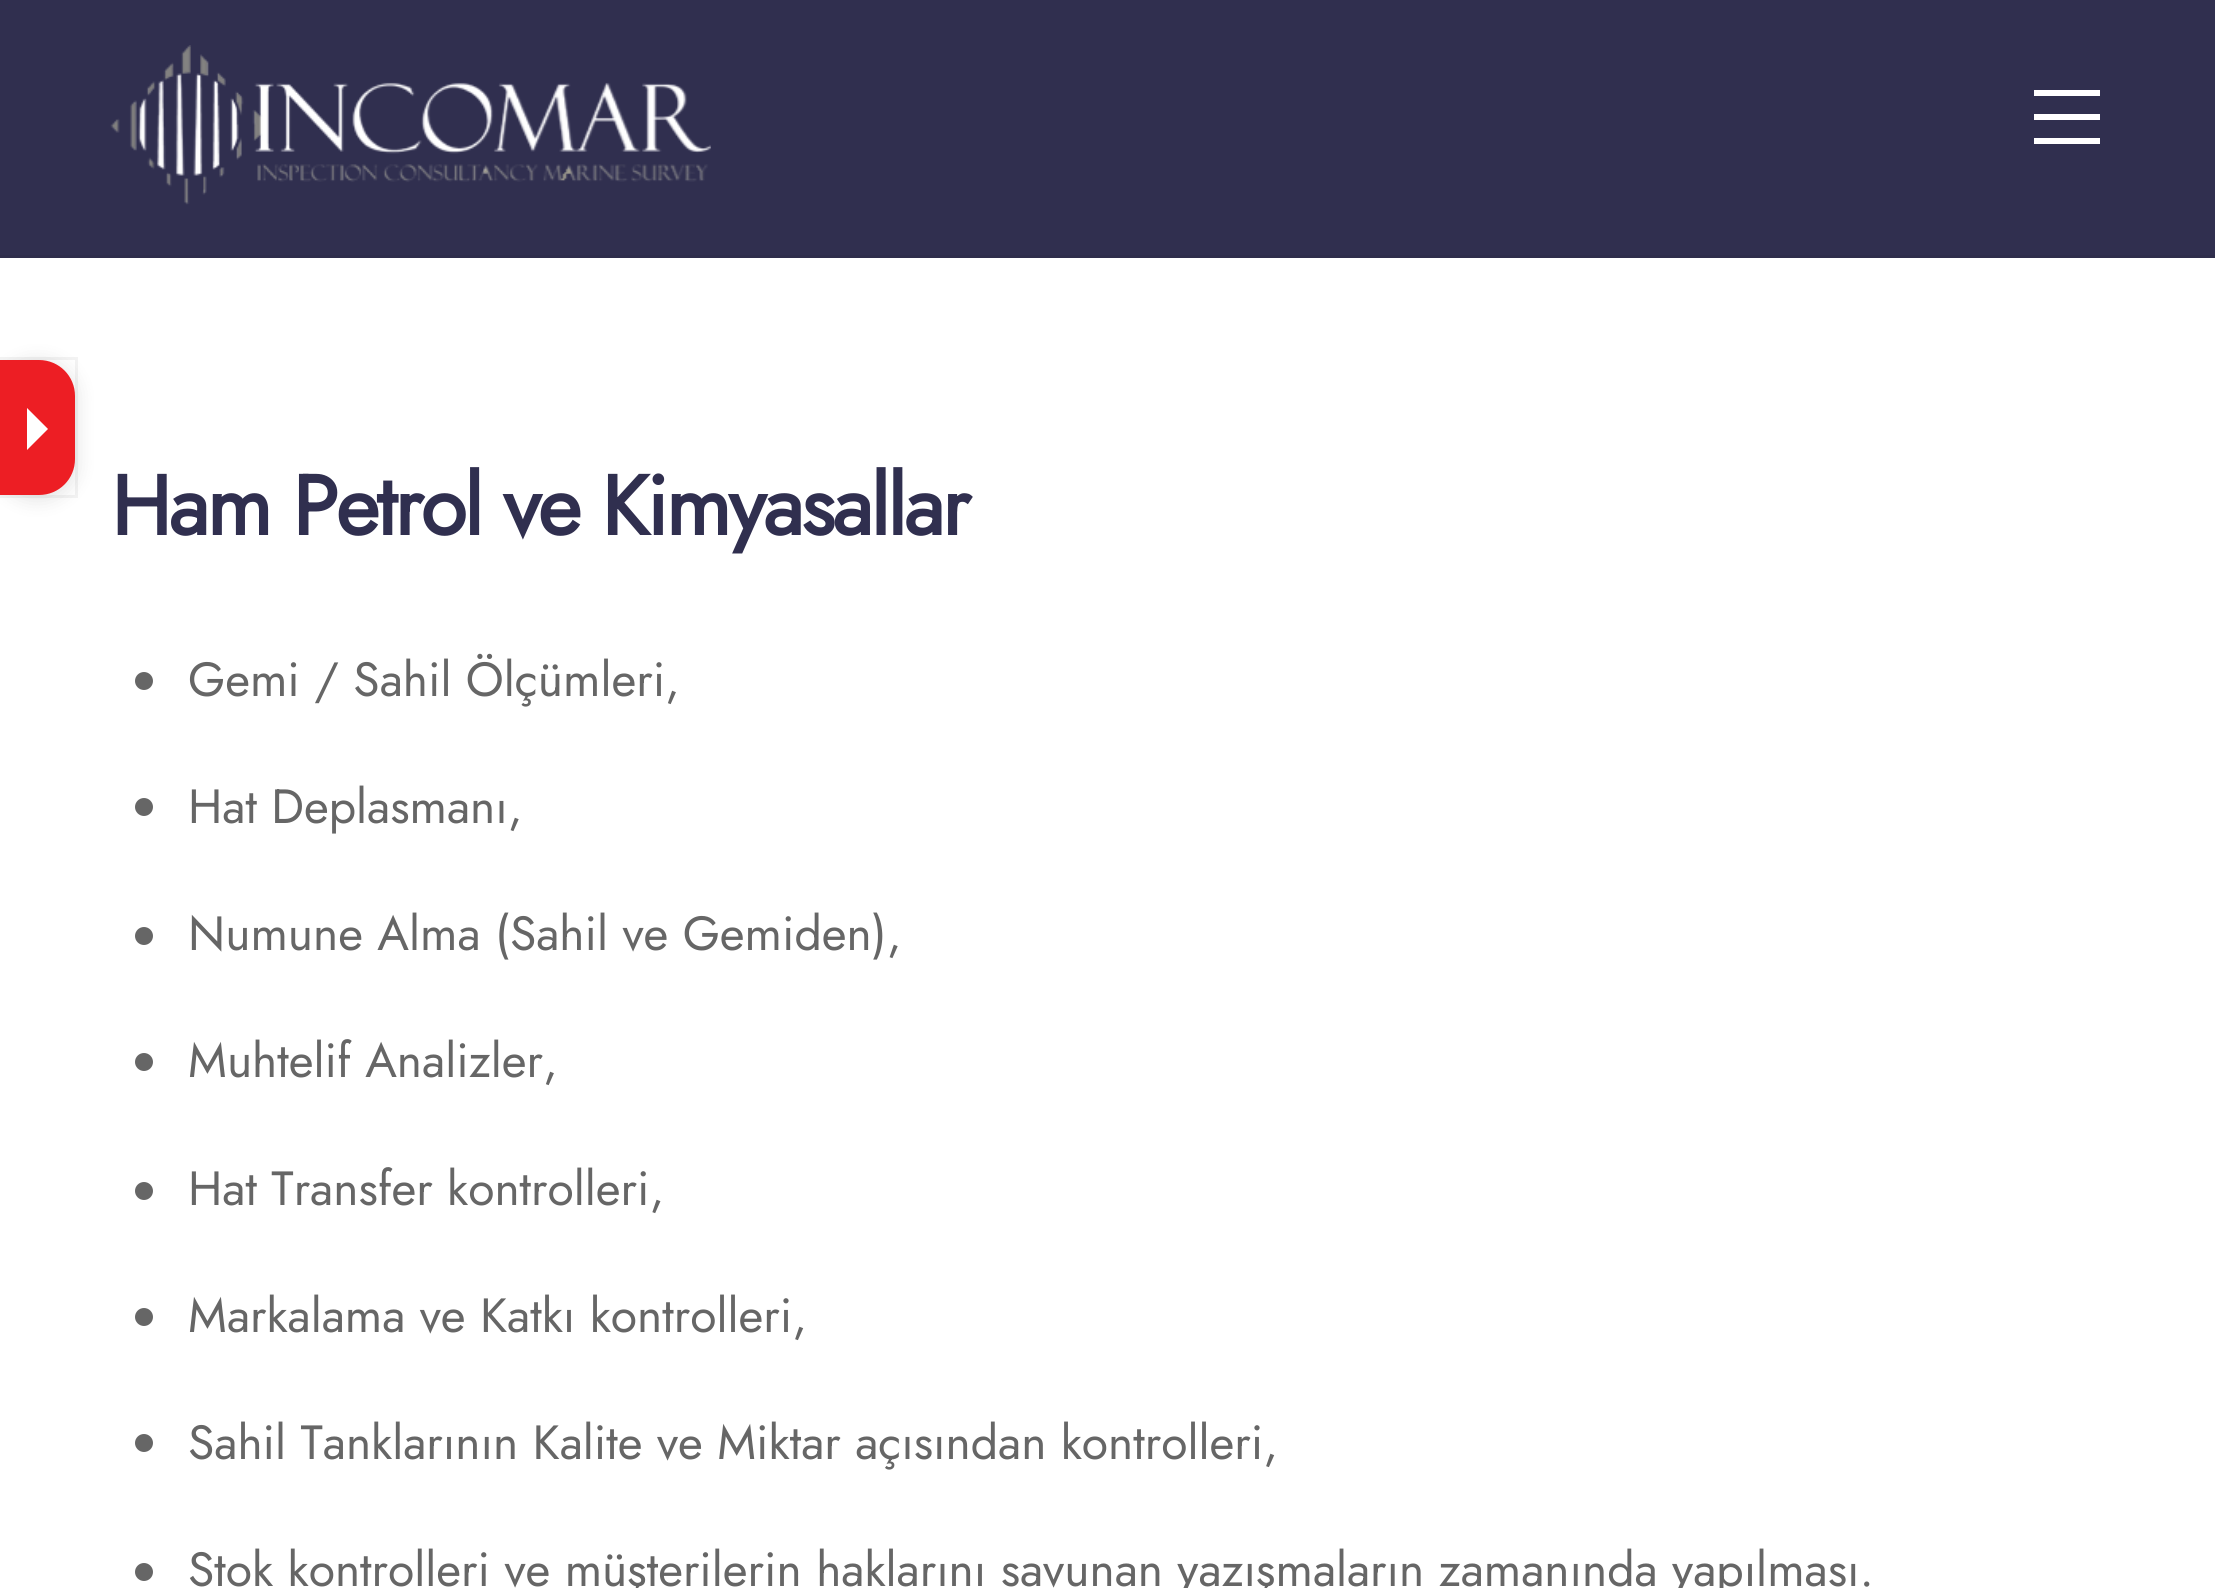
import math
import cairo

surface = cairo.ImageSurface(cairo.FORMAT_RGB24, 2215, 1588)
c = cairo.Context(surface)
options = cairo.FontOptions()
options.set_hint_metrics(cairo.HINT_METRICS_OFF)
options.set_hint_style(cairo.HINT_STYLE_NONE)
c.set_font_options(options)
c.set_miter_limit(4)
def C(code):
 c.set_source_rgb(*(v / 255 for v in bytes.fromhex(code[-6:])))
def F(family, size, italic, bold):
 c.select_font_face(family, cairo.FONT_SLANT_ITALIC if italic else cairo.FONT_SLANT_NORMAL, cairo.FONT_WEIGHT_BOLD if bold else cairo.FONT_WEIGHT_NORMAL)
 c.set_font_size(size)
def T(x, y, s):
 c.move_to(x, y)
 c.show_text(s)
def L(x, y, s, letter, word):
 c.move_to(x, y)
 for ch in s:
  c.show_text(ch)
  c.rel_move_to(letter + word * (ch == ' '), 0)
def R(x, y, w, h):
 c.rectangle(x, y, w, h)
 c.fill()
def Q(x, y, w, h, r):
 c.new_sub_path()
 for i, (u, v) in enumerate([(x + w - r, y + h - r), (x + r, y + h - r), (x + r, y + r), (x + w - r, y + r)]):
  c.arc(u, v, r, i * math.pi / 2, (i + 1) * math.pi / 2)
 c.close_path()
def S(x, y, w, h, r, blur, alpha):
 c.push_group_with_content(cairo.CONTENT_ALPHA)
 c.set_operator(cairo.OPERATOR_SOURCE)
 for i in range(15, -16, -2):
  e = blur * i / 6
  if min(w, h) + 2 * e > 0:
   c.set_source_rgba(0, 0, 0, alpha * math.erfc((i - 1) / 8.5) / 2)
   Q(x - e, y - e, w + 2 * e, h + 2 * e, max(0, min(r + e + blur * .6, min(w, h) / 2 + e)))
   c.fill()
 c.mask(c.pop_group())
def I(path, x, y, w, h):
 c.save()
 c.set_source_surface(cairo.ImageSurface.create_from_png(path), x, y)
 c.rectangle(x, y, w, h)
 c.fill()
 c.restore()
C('ffffff')
c.paint()
C('302f4f')
R(0,0,2215,255)
C('2e2d4b')
R(0,255,2215,3)
I('1.png',110,45,601,160)
C('000000')
S(-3,360,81,141,39,9,.1)
c.rectangle(-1.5,358.5,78,138)
c.set_source_rgba(0,0,0,0.05)
c.set_line_width(3)
c.stroke()
C('ed1e24')
c.new_path()
c.move_to(0,360)
c.line_to(39,360)
c.curve_to(59,360,75,376,75,396)
c.line_to(75,459)
c.curve_to(75,479,59,495,39,495)
c.line_to(0,495)
c.close_path()
c.fill()
C('ffffff')
c.new_path()
c.move_to(27,450)
c.line_to(27,408)
c.line_to(48,429)
c.close_path()
c.fill()
R(2034,138,66,6)
R(2034,90,66,6)
R(2034,114,66,6)
F('Jost',84,0,1)
C('302f4f')
L(111,535,'Ham Petrol ve Kimyasallar',-2.5,0)
C('666666')
c.new_path()
c.arc(144,681,9,0,2 * math.pi)
c.fill()
F('Jost',48,0,0)
T(188,696,'Gemi / Sahil Ölçümleri,')
c.new_path()
c.arc(144,807,9,0,2 * math.pi)
c.fill()
T(188,823,'Hat Deplasmanı,')
c.new_path()
c.arc(144,936,9,0,2 * math.pi)
c.fill()
T(188,950,'Numune Alma (Sahil ve Gemiden),')
c.new_path()
c.arc(144,1062,9,0,2 * math.pi)
c.fill()
T(188,1077,'Muhtelif Analizler,')
c.new_path()
c.arc(144,1191,9,0,2 * math.pi)
c.fill()
T(188,1205,'Hat Transfer kontrolleri,')
c.new_path()
c.arc(144,1317,9,0,2 * math.pi)
c.fill()
T(188,1332,'Markalama ve Katkı kontrolleri,')
c.new_path()
c.arc(144,1443,9,0,2 * math.pi)
c.fill()
T(188,1459,'Sahil Tanklarının Kalite ve Miktar açısından kontrolleri,')
c.new_path()
c.arc(144,1572,9,0,2 * math.pi)
c.fill()
T(188,1586,'Stok kontrolleri ve müşterilerin haklarını savunan yazışmaların zamanında yapılması.')
surface.write_to_png('o.png')
